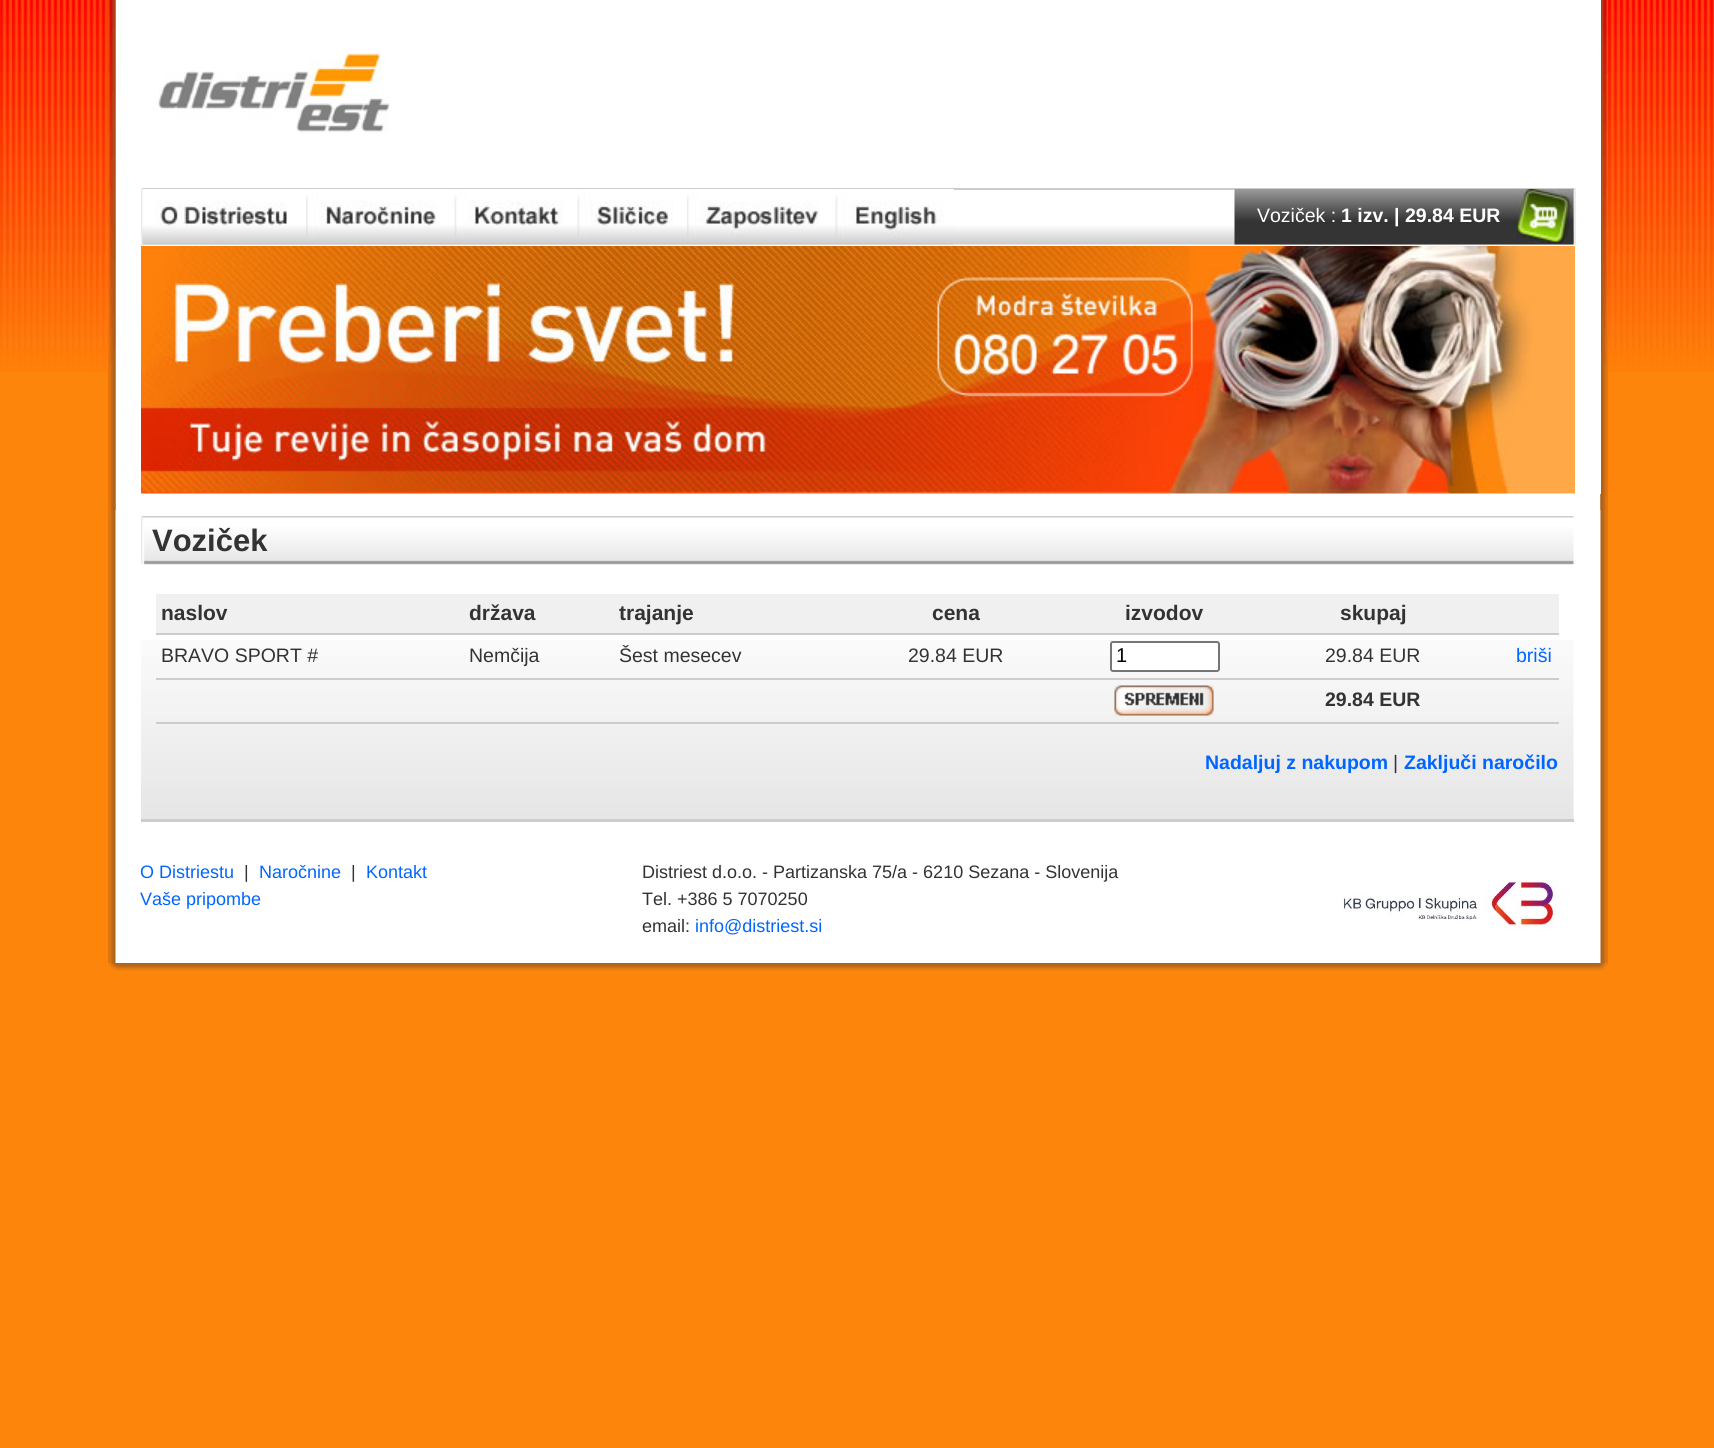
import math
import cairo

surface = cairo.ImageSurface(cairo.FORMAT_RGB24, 1714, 1448)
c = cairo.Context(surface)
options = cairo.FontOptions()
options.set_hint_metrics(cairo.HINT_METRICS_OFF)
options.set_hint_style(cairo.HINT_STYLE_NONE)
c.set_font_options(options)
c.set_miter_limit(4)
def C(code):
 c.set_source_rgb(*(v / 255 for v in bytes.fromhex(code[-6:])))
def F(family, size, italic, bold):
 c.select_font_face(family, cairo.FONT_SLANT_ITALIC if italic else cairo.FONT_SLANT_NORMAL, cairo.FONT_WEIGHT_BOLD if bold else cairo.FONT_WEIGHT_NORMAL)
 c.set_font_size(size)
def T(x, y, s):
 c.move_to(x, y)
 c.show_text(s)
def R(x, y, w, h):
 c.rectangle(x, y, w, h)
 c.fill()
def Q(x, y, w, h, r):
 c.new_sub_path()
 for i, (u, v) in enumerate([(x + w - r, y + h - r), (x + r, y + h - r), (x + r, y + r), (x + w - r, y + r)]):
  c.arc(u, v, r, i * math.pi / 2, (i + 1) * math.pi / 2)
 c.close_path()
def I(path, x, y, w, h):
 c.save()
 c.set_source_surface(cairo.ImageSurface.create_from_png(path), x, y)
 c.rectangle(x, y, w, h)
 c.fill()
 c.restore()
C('fe850c')
c.paint()
I('1.png',0,0,1714,372)
I('15.png',108,0,1500,963)
I('2.png',108,0,8,510)
I('14.png',1600,0,8,510)
C('ffffff')
R(1600,0,1,494)
I('3.png',158,48,232,85)
I('4.png',143,226,1431,19)
C('cccccc')
R(141,188,1434,2)
C('ebebeb')
R(1574,188,2,57)
R(141,188,2,57)
I('5.png',142,189,164,56)
I('6.png',306,189,149,56)
I('7.png',454,189,124,56)
I('8.png',577,189,110,56)
I('9.png',687,189,149,56)
I('10.png',835,189,119,56)
I('11.png',1234,189,340,56)
F('Liberation Sans',19.5,0,0)
C('ffffff')
T(1257,222,'Voziček :')
F('Liberation Sans',19.5,0,1)
T(1341,222,'1 izv. | 29.84 EUR')
I('12.png',1516,189,58,54)
I('13.png',141,246,1434,248)
I('16.png',141,516,1433,49)
F('Liberation Sans',31,0,1)
C('333333')
T(152,551,'Voziček')
I('17.png',141,640,1433,179)
C('cccccc')
R(141,819,1433,3)
C('f0f0f0')
R(156,594,1403,39)
C('cccccc')
R(156,633,1403,2)
F('Liberation Sans',21,0,1)
C('333333')
T(161,620,'naslov')
T(469,620,'država')
T(619,620,'trajanje')
T(932,620,'cena')
T(1125,620,'izvodov')
T(1340,620,'skupaj')
C('cccccc')
R(156,678,1403,2)
F('Liberation Sans',19.5,0,0)
C('333333')
T(161,662,'BRAVO SPORT #')
T(469,662,'Nemčija')
T(619,662,'Šest mesecev')
T(908,662,'29.84 EUR')
C('ffffff')
Q(1111,642,108,29,2)
c.fill_preserve()
C('767676')
c.stroke()
F('Liberation Sans',20,0,0)
C('000000')
T(1116,662,'1')
F('Liberation Sans',19.5,0,0)
C('333333')
T(1325,662,'29.84 EUR')
C('0066ff')
T(1516,662,'briši')
I('18.png',1114,685,100,31)
F('Liberation Sans',19.5,0,1)
C('333333')
T(1325,706,'29.84 EUR')
C('cccccc')
R(156,722,1403,2)
C('0066ff')
T(1205,769,'Nadaljuj z nakupom')
F('Liberation Sans',19.5,0,0)
C('333333')
T(1393,769,'|')
F('Liberation Sans',19.5,0,1)
C('0066ff')
T(1404,769,'Zaključi naročilo')
F('Liberation Sans',18,0,0)
T(140,878,'O Distriestu')
C('333333')
T(244,878,'|')
C('0066ff')
T(259,878,'Naročnine')
C('333333')
T(351,878,'|')
C('0066ff')
T(366,878,'Kontakt')
T(140,905,'Vaše pripombe')
C('333333')
T(642,878,'Distriest d.o.o. - Partizanska 75/a - 6210 Sezana - Slovenija')
T(642,905,'Tel. +386 5 7070250')
I('19.png',1342,880,215,51)
T(642,932,'email:')
C('0066ff')
T(695,932,'info@distriest.si')
I('20.png',108,963,1500,8)
surface.write_to_png('o.png')
